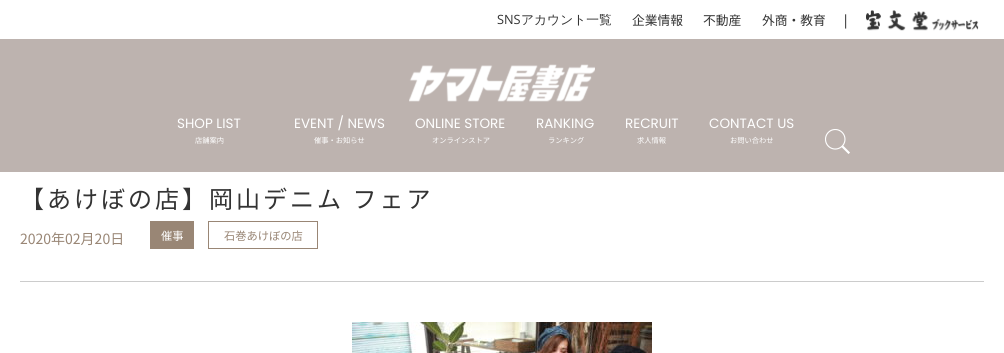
import math
import cairo

surface = cairo.ImageSurface(cairo.FORMAT_RGB24, 1004, 353)
c = cairo.Context(surface)
options = cairo.FontOptions()
options.set_hint_metrics(cairo.HINT_METRICS_OFF)
options.set_hint_style(cairo.HINT_STYLE_NONE)
c.set_font_options(options)
c.set_miter_limit(4)
def C(code):
 c.set_source_rgb(*(v / 255 for v in bytes.fromhex(code[-6:])))
def F(family, size, italic, bold):
 c.select_font_face(family, cairo.FONT_SLANT_ITALIC if italic else cairo.FONT_SLANT_NORMAL, cairo.FONT_WEIGHT_BOLD if bold else cairo.FONT_WEIGHT_NORMAL)
 c.set_font_size(size)
def T(x, y, s):
 c.move_to(x, y)
 c.show_text(s)
def L(x, y, s, letter, word):
 c.move_to(x, y)
 for ch in s:
  c.show_text(ch)
  c.rel_move_to(letter + word * (ch == ' '), 0)
def R(x, y, w, h):
 c.rectangle(x, y, w, h)
 c.fill()
def I(path, x, y, w, h):
 c.save()
 c.set_source_surface(cairo.ImageSurface.create_from_png(path), x, y)
 c.rectangle(x, y, w, h)
 c.fill()
 c.restore()
C('ffffff')
c.paint()
F('Open Sans',12.75,0,0)
C('333333')
T(497,24,'SNS')
F('WenQuanYi Zen Hei Medium',12.75,0,0)
T(521,24,'アカウント一覧')
F('Noto Sans JP',12.75,0,0)
T(632,25,'企業情報')
T(703,25,'不動産')
T(762,25,'外商・教育')
C('000000')
T(844,25,'|')
I('1.png',866,10,113,21)
C('bdb3af')
R(0,39,1004,133)
I('2.png',409,64,186,38)
F('Poppins',13.5,0,0)
C('ffffff')
T(177,128,'SHOP LIST')
F('Noto Sans JP',7.25,0,0)
T(195,143,'店舗案内')
F('Poppins',13.5,0,0)
T(294,128,'EVENT / NEWS')
F('Noto Sans JP',7.25,0,0)
T(314,143,'催事・お知らせ')
F('Poppins',13.5,0,0)
T(415,128,'ONLINE STORE')
F('Noto Sans JP',7.25,0,0)
T(432,143,'オンラインストア')
F('Poppins',13.5,0,0)
T(536,128,'RANKING')
F('Noto Sans JP',7.25,0,0)
T(548,143,'ランキング')
F('Poppins',13.5,0,0)
T(625,128,'RECRUIT')
F('Noto Sans JP',7.25,0,0)
T(637,143,'求人情報')
F('Poppins',13.5,0,0)
T(709,128,'CONTACT US')
F('Noto Sans JP',7.25,0,0)
T(730,143,'お問い合わせ')
I('3.png',825,129,25,25)
C('cccccc')
R(20,281,964,1)
F('Noto Sans JP',24,0,0)
C('333333')
L(20,208,'【あけぼの店】岡山デニム フェア',3,0)
F('Noto Sans JP',14,0,0)
C('998675')
T(20,244,'2020年02月20日')
R(150,221,44,28)
F('Noto Sans JP',11.25,0,0)
C('ffffff')
T(161,240,'催事')
c.rectangle(208.5,221.5,109,27)
C('998675')
c.set_line_width(1)
c.stroke()
T(224,240,'石巻あけぼの店')
I('4.png',352,322,300,31)
surface.write_to_png('o.png')
